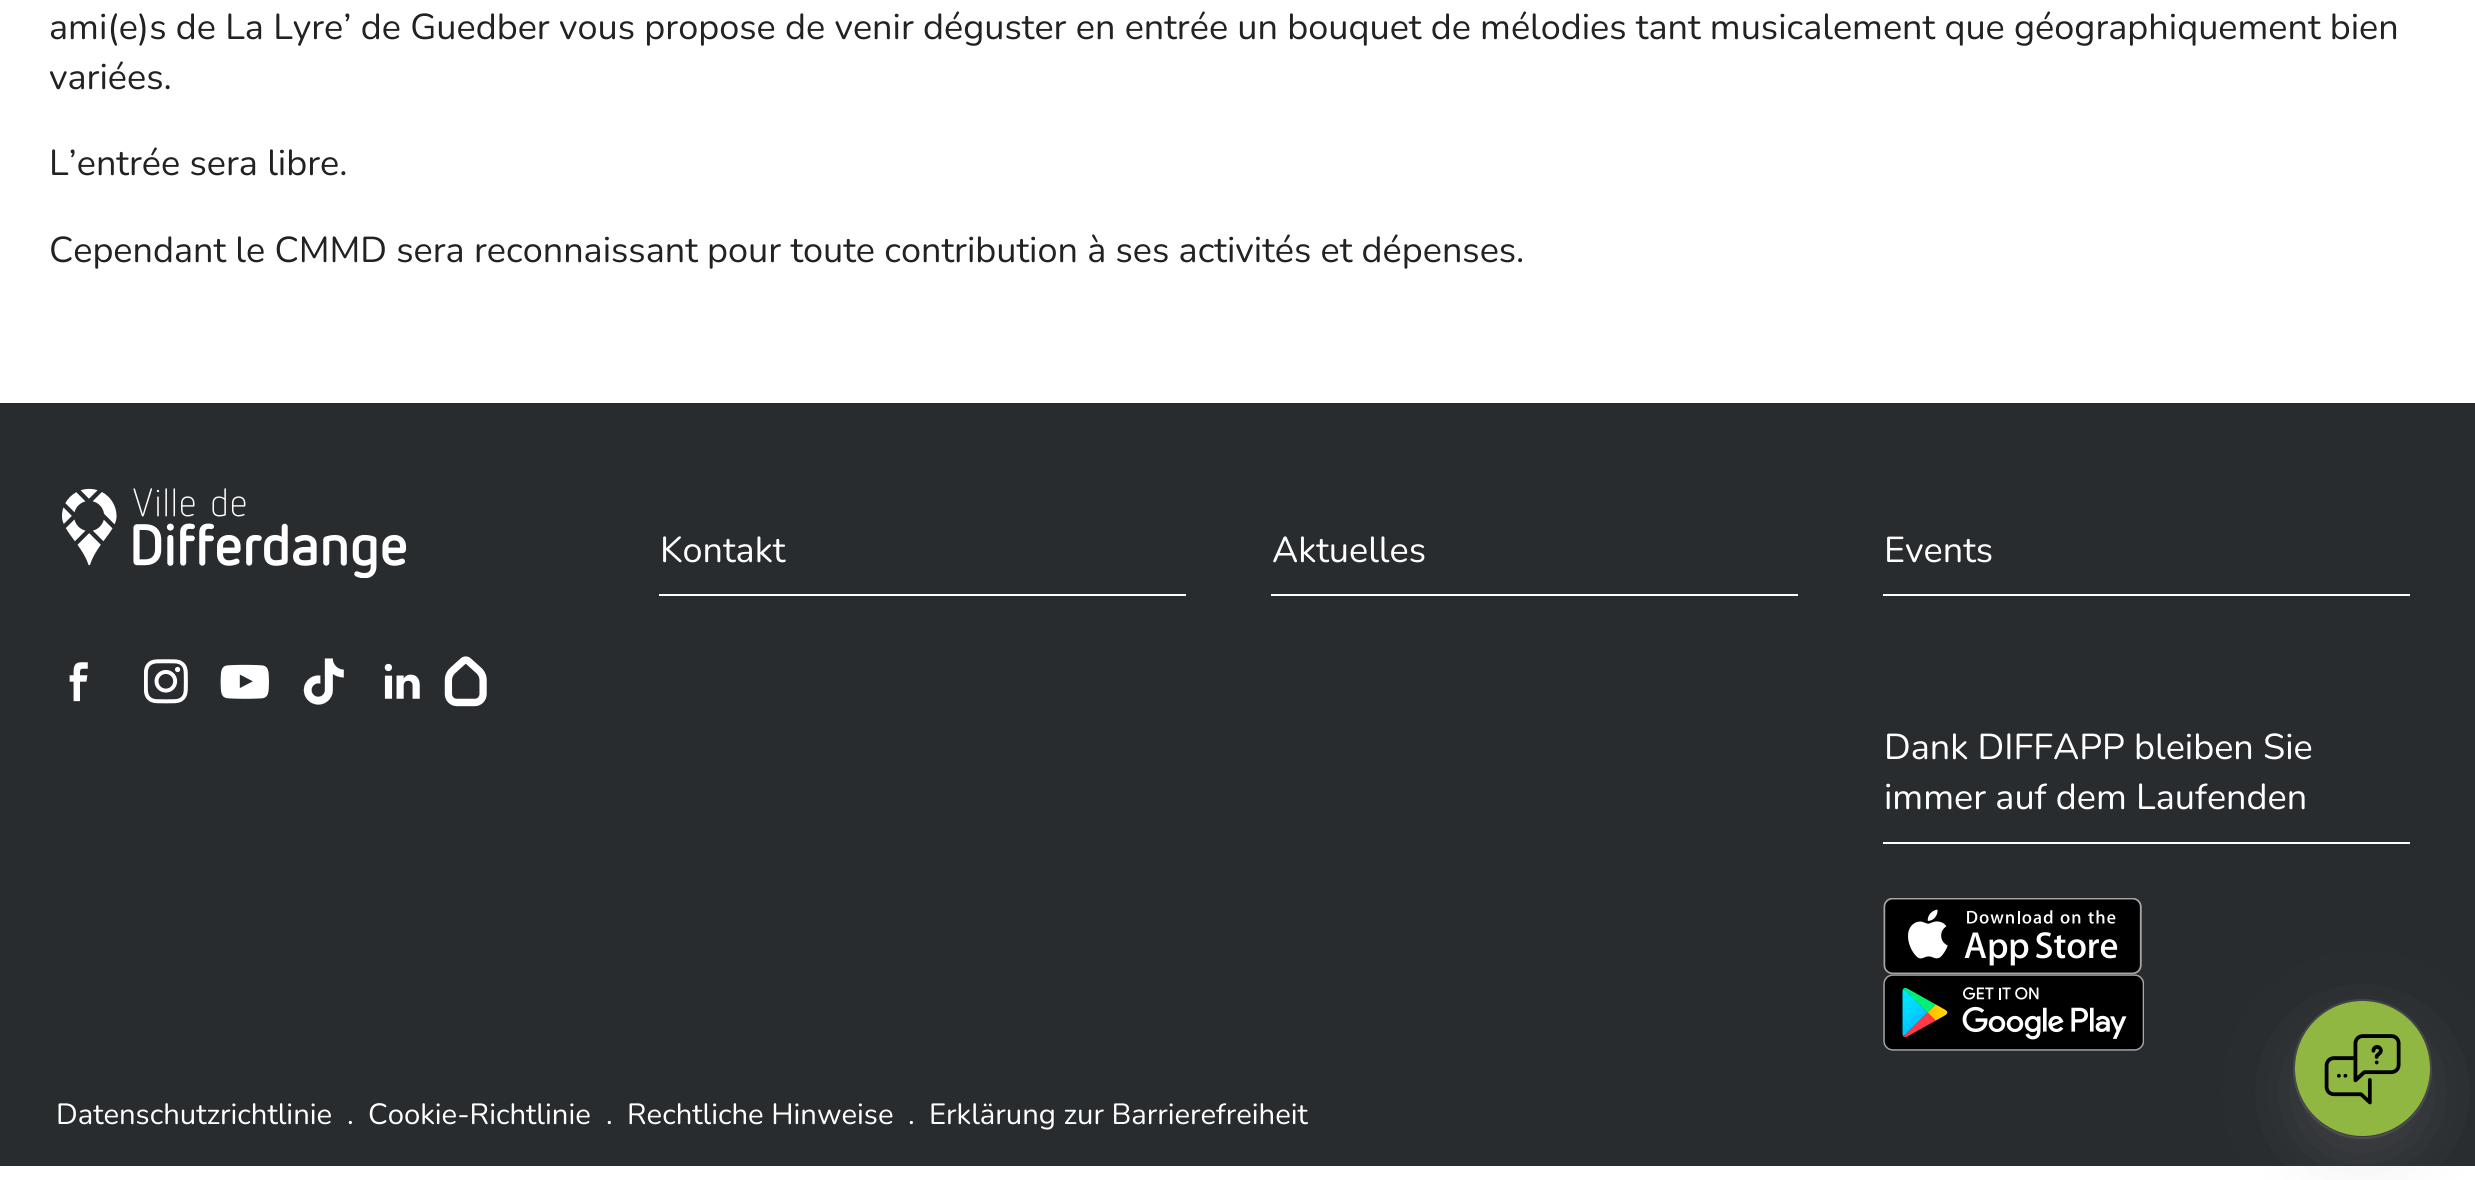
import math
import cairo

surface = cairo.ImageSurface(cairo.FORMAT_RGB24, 2475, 1180)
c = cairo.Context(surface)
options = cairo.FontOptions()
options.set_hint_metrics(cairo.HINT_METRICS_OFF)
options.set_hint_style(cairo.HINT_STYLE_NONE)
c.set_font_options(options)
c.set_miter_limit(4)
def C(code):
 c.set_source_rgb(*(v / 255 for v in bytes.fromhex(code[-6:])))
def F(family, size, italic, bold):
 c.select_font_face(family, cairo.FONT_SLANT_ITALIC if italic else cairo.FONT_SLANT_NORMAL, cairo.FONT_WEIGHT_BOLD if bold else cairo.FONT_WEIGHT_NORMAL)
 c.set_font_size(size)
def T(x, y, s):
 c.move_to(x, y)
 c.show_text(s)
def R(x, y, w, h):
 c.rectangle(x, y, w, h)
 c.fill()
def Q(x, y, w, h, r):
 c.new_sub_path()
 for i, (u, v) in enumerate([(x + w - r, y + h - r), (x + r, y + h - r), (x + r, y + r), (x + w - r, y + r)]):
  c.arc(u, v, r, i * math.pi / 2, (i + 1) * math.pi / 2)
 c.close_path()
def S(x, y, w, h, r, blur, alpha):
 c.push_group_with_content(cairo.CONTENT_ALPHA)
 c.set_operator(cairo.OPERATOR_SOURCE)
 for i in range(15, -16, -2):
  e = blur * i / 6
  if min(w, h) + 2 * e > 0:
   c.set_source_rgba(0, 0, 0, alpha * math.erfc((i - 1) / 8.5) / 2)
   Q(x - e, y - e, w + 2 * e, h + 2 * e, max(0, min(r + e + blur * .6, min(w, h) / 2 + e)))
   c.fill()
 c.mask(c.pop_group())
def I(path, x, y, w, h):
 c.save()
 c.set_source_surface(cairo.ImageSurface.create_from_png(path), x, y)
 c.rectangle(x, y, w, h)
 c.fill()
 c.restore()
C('ffffff')
c.paint()
F('Nunito',36,0,0)
C('222222')
T(49,39,'ami(e)s de La Lyre’ de Guedber vous propose de venir déguster en entrée un bouquet de mélodies tant musicalement que géographiquement bien')
T(49,89,'variées.')
T(49,175,'L’entrée sera libre.')
T(49,262,'Cependant le CMMD sera reconnaissant pour toute contribution à ses activités et dépenses.')
C('292c2f')
R(0,403,2475,763)
I('1.png',62,488,345,90)
I('2.png',69,662,19,40)
I('3.png',144,659,44,45)
I('4.png',220,664,49,35)
I('5.png',303,658,41,47)
I('6.png',384,663,36,36)
I('7.png',444,656,43,51)
C('ffffff')
R(659,594,527,2)
T(660,562,'Kontakt')
R(1271,594,527,2)
T(1272,562,'Aktuelles')
R(1883,594,527,2)
T(1884,562,'Events')
R(1883,842,527,2)
T(1884,759,'Dank DIFFAPP bleiben Sie')
T(1884,809,'immer auf dem Laufenden')
I('8.png',1883,898,259,76)
I('9.png',1883,974,261,77)
F('Nunito',29.25,0,0)
T(56,1124,'Datenschutzrichtlinie')
T(347,1124,'.')
T(368,1124,'Cookie-Richtlinie')
T(606,1124,'.')
T(627,1124,'Rechtliche Hinweise')
T(908,1124,'.')
T(929,1124,'Erklärung zur Barrierefreiheit')
Q(2294,1000,137,138,68.5)
C('3f4144')
c.stroke()
C('969696')
S(2295,1024,135,135,67.5,34,.2)
C('90b742')
c.arc(2362.5,1068.5,67.5,0,2 * math.pi)
c.fill()
I('10.png',2324,1034,77,71)
surface.write_to_png('o.png')
